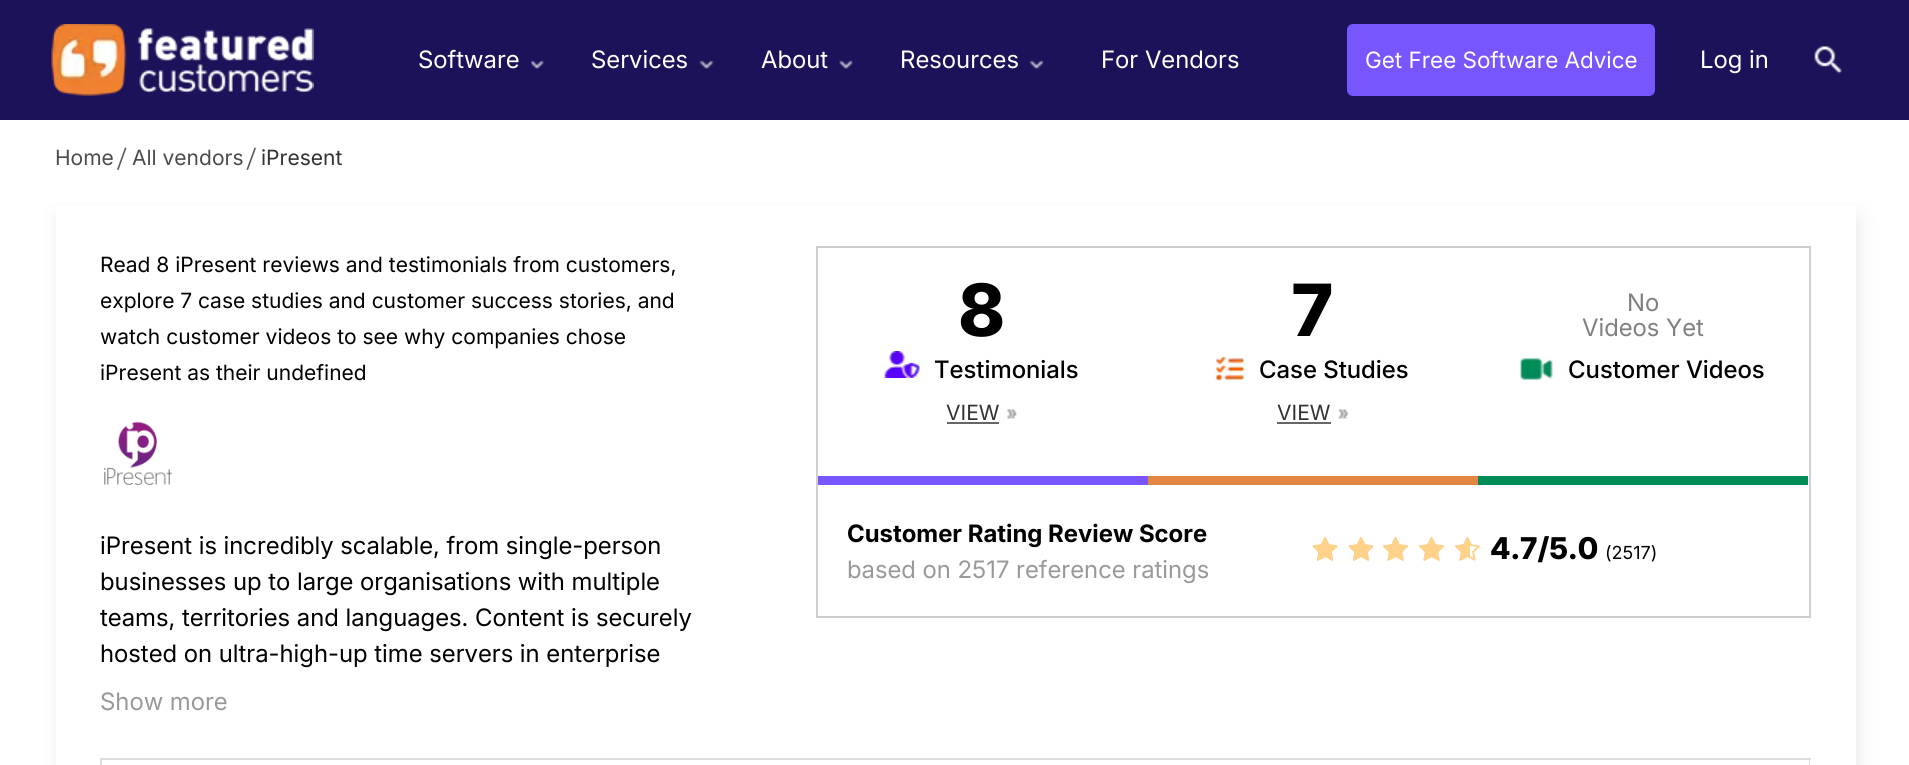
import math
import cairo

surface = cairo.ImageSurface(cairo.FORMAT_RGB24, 1909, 765)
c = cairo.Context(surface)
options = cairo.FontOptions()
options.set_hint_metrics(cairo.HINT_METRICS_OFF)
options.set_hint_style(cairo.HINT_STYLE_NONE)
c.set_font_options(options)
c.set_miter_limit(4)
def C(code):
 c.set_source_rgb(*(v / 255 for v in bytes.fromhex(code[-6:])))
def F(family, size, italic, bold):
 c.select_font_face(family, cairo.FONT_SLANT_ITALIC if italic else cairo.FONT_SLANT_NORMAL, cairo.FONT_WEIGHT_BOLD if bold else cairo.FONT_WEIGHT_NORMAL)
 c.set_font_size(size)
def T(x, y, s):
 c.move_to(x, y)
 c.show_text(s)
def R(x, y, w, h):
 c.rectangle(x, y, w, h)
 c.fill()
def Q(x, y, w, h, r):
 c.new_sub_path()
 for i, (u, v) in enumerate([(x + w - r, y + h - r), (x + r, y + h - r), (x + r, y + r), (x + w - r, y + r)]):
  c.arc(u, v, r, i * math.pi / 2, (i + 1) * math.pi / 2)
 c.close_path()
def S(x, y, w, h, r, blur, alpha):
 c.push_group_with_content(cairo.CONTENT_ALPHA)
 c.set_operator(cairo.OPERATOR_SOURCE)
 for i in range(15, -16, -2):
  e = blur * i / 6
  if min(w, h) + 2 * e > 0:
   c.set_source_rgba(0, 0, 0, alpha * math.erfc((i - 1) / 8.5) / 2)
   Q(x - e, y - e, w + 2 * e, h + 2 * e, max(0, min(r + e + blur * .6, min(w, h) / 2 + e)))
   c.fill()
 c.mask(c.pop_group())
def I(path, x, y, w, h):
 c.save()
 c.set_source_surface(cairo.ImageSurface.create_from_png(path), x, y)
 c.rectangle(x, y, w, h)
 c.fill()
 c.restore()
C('ffffff')
c.paint()
C('1c1259')
R(0,0,1909,120)
I('1.png',51,24,263,72)
F('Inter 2',24,0,0)
C('ffffff')
T(418,68,'Software')
I('2.png',531,60,13,9)
T(591,68,'Services')
I('3.png',699,60,15,9)
T(761,68,'About')
I('4.png',839,60,14,9)
T(900,68,'Resources')
I('5.png',1029,60,15,9)
T(1101,68,'For Vendors')
C('7856ff')
Q(1347,24,308,72,6)
c.fill()
F('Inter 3',22.5,0,0)
C('ffffff')
T(1365,68,'Get Free Software Advice')
F('Inter 2',24,0,0)
T(1700,68,'Log in')
I('6.png',1814,46,28,28)
F('Inter',21,0,0)
C('4c4c4c')
T(55,165,'Home')
C('565656')
c.new_path()
c.move_to(125,147.5)
c.line_to(126.5,148)
c.line_to(118.5,170)
c.line_to(117,169.5)
c.close_path()
c.fill()
C('4c4c4c')
T(132,165,'All vendors')
C('565656')
c.new_path()
c.move_to(254.5,147.5)
c.line_to(256,148)
c.line_to(248,170)
c.line_to(246.5,169.5)
c.close_path()
c.fill()
C('323232')
T(261,165,'iPresent')
C('323232')
S(59,216,1800,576,0,9,.1)
C('ffffff')
R(56,206,1800,559)
C('000000')
T(100,272,'Read 8 iPresent reviews and testimonials from customers,')
T(100,308,'explore 7 case studies and customer success stories, and')
T(100,344,'watch customer videos to see why companies chose')
T(100,380,'iPresent as their undefined')
I('7.png',104,421,68,64)
F('Inter 2',24,0,0)
T(100,554,'iPresent is incredibly scalable, from single-person')
T(100,590,'businesses up to large organisations with multiple')
T(100,626,'teams, territories and languages. Content is securely')
T(100,662,'hosted on ultra-high-up time servers in enterprise')
C('999999')
T(100,710,'Show more')
c.rectangle(817,247,993,370)
C('cfcfcf')
c.stroke()
C('7855ff')
R(818,476,330,9)
F('Inter ExtraBold',72,0,0)
C('000000')
T(959,336,'8')
I('8.png',884,351,36,27)
F('Inter Medium',24,0,0)
T(934,378,'Testimonials')
F('Inter',21,0,0)
C('323232')
T(946,420,'VIEW')
C('666666')
R(947,422,52,2)
I('9.png',1006,409,12,10)
C('e18643')
R(1148,476,330,9)
F('Inter ExtraBold',72,0,0)
C('000000')
T(1292,336,'7')
I('10.png',1216,357,28,24)
F('Inter Medium',24,0,0)
T(1259,378,'Case Studies')
F('Inter',21,0,0)
C('323232')
T(1277,420,'VIEW')
C('666666')
R(1277,422,54,2)
I('11.png',1337,409,12,10)
C('018b56')
R(1478,476,330,9)
F('Inter 2',24,0,0)
C('808080')
T(1627,311,'No')
T(1582,336,'Videos Yet')
I('12.png',1520,358,33,22)
F('Inter Medium',24,0,0)
C('000000')
T(1568,378,'Customer Videos')
F('Inter',24,0,1)
T(847,542,'Customer Rating Review Score')
F('Inter 2',24,0,0)
C('999999')
T(847,578,'based on 2517 reference ratings')
I('13.png',1312,536,26,25)
I('14.png',1313,537,25,24)
I('13.png',1348,536,26,25)
I('15.png',1349,537,24,24)
I('16.png',1383,536,25,25)
I('17.png',1383,537,25,24)
I('16.png',1419,536,25,25)
I('17.png',1419,537,25,24)
I('16.png',1455,536,25,25)
I('18.png',1455,537,15,24)
F('Inter 2 ExtraBold',30,0,0)
C('000000')
T(1490,559,'4.7/5.0')
F('Inter',18,0,0)
T(1605,559,'(2517)')
C('dddddd')
R(101,758,1710,2)
c.new_path()
c.move_to(1810,758)
c.line_to(1810,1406)
c.line_to(1809,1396)
c.line_to(1809,759)
c.close_path()
c.fill()
c.new_path()
c.move_to(100,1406)
c.line_to(100,758)
c.line_to(102,759)
c.line_to(102,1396)
c.close_path()
c.fill()
surface.write_to_png('o.png')
